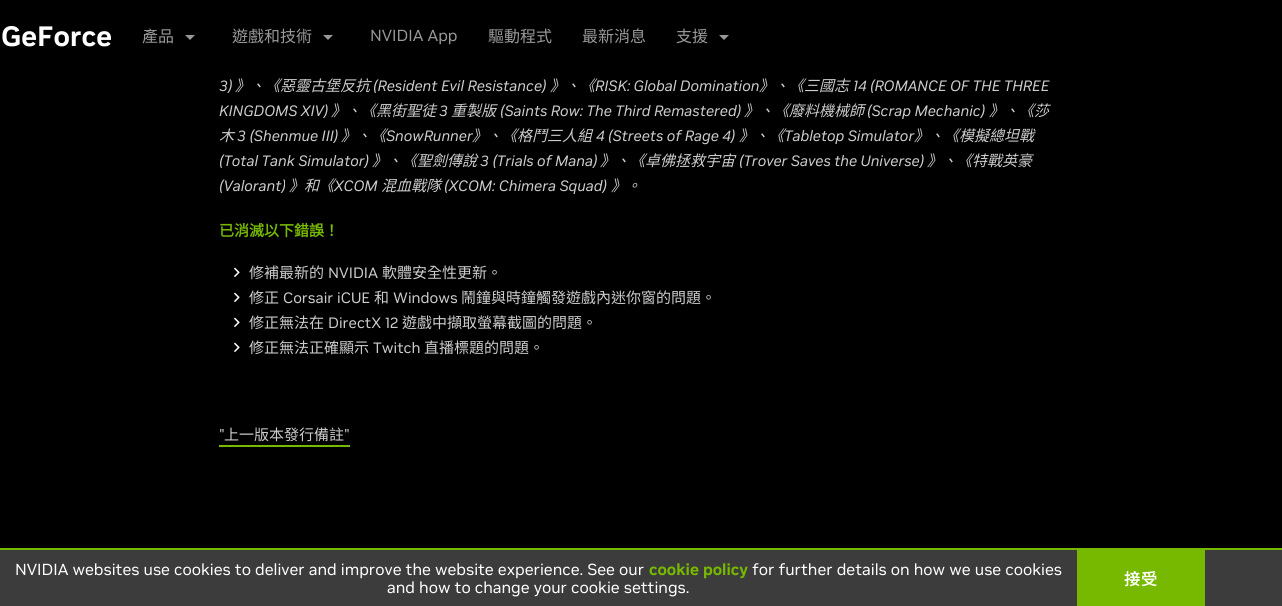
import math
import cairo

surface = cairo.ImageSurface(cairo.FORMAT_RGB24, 1282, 606)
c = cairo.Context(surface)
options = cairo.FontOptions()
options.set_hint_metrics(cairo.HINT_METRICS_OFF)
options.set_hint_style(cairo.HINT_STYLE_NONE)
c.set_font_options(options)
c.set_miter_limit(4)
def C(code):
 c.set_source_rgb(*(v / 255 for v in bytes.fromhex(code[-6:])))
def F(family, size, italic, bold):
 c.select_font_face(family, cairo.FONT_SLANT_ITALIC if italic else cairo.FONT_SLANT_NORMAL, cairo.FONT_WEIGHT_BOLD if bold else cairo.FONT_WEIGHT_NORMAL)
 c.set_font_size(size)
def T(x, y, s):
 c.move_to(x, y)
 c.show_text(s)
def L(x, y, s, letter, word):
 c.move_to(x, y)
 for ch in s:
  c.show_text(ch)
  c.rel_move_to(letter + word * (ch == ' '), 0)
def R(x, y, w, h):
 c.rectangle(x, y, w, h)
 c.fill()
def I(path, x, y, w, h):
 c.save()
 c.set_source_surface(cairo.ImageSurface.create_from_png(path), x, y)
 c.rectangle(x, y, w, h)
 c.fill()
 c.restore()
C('000000')
c.paint()
F('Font',28,0,1)
C('ffffff')
T(1,46,'GeForce')
F('Noto Sans CJK TC',16,0,0)
C('999999')
T(142,42,'產品')
c.new_path()
c.move_to(185,35)
c.line_to(190,40)
c.line_to(195,35)
c.close_path()
c.fill()
T(232,42,'遊戲和技術')
c.new_path()
c.move_to(323,35)
c.line_to(328,40)
c.line_to(333,35)
c.close_path()
c.fill()
F('Font',16,0,0)
T(370,41,'NVIDIA App')
F('Noto Sans CJK TC',16,0,0)
T(488,42,'驅動程式')
T(582,42,'最新消息')
T(676,42,'支援')
c.new_path()
c.move_to(719,35)
c.line_to(724,40)
c.line_to(729,35)
c.close_path()
c.fill()
F('Font',15,1,0)
C('cccccc')
T(219,91,'3)')
F('Noto Sans CJK TC',15,1,0)
T(235,91,'》、《惡靈古堡反抗')
F('Font',15,1,0)
T(373,91,'(Resident Evil Resistance)')
F('Noto Sans CJK TC',15,1,0)
T(550,91,'》、《')
F('Font',15,1,0)
T(595,91,'RISK: Global Domination')
F('Noto Sans CJK TC',15,1,0)
T(759,91,'》、《三國志')
F('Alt',15,1,0)
T(853,91,'14 (ROMANCE OF THE THREE')
F('Font',15,1,0)
T(219,116,'KINGDOMS XIV)')
F('Noto Sans CJK TC',15,1,0)
T(331,116,'》、《黑街聖徒')
F('Font',15,1,0)
T(439,116,'3')
F('Noto Sans CJK TC',15,1,0)
T(451,116,'重製版')
F('Font',15,1,0)
T(500,116,'(Saints Row: The Third Remastered)')
F('Noto Sans CJK TC',15,1,0)
T(744,116,'》、《廢料機械師')
F('Font',15,1,0)
T(867,116,'(Scrap Mechanic)')
F('Noto Sans CJK TC',15,1,0)
T(989,116,'》、《莎')
T(219,141,'木')
F('Font',15,1,0)
T(237,141,'3 (Shenmue III)')
F('Noto Sans CJK TC',15,1,0)
T(341,141,'》、《')
F('Font',15,1,0)
T(386,141,'SnowRunner')
F('Noto Sans CJK TC',15,1,0)
T(472,141,'》、《格鬥三人組')
F('Alt',15,1,0)
T(596,141,'4 (Streets of Rage 4)')
F('Noto Sans CJK TC',15,1,0)
T(739,141,'》、《')
F('Font',15,1,0)
T(784,141,'Tabletop Simulator')
F('Noto Sans CJK TC',15,1,0)
T(914,141,'》、《模擬總坦戰')
F('Font',15,1,0)
T(219,166,'(Total Tank Simulator)')
F('Noto Sans CJK TC',15,1,0)
T(372,166,'》、《聖劍傳說')
F('Font',15,1,0)
T(480,166,'3 (Trials of Mana)')
F('Noto Sans CJK TC',15,1,0)
T(600,166,'》、《卓佛拯救宇宙')
F('Font',15,1,0)
T(739,166,'(Trover Saves the Universe)')
F('Noto Sans CJK TC',15,1,0)
T(927,166,'》、《特戰英豪')
F('Font',15,1,0)
T(219,191,'(Valorant)')
F('Noto Sans CJK TC',15,1,0)
T(289,191,'》和《')
F('Font',15,1,0)
T(334,191,'XCOM')
F('Noto Sans CJK TC',15,1,0)
T(381,191,'混血戰隊')
F('Font',15,1,0)
T(444,191,'(XCOM: Chimera Squad)')
F('Noto Sans CJK TC',15,1,0)
T(611,191,'》。')
F('Noto Sans CJK TC',15,0,1)
C('76b900')
T(219,236,'已消滅以下錯誤！')
I('1.png',234,267,6,10)
F('Noto Sans CJK TC',15,0,0)
C('cccccc')
T(249,278,'修補最新的')
F('Font',15,0,0)
T(328,278,'NVIDIA')
F('Noto Sans CJK TC',15,0,0)
T(382,278,'軟體安全性更新。')
I('1.png',234,292,6,10)
T(249,303,'修正')
F('Font',15,0,0)
T(283,303,'Corsair iCUE')
F('Noto Sans CJK TC',15,0,0)
T(374,303,'和')
F('Font',15,0,0)
T(393,303,'Windows')
F('Noto Sans CJK TC',15,0,0)
T(461,303,'鬧鐘與時鐘觸發遊戲內迷你窗的問題。')
I('1.png',234,317,6,10)
T(249,328,'修正無法在')
F('Alt',15,0,0)
T(328,328,'DirectX 12')
F('Noto Sans CJK TC',15,0,0)
T(402,328,'遊戲中擷取螢幕截圖的問題。')
I('1.png',234,342,6,10)
T(249,353,'修正無法正確顯示')
F('Font',15,0,0)
T(373,353,'Twitch')
F('Noto Sans CJK TC',15,0,0)
T(424,353,'直播標題的問題。')
F('Font',15,0,0)
T(219,440,'"')
F('Noto Sans CJK TC',15,0,0)
T(224,440,'上一版本發行備註')
C('76b900')
R(219,445,131,2)
F('Font',15,0,0)
C('cccccc')
T(344,440,'"')
C('3c3c3c')
R(0,550,1282,56)
C('76b900')
R(0,548,1282,2)
F('Font',16,0,0)
C('ffffff')
T(15,575,'NVIDIA websites use cookies to deliver and improve the website experience. See our')
F('Font',16,0,1)
C('76b900')
T(649,575,'cookie policy')
F('Font',16,0,0)
C('ffffff')
T(752,575,'for further details on how we use cookies')
T(387,593,'and how to change your cookie settings.')
C('76b900')
R(1077,550,128,56)
F('Noto Sans CJK TC',16,0,1)
C('ffffff')
L(1124,585,'接受',1,0)
surface.write_to_png('o.png')
